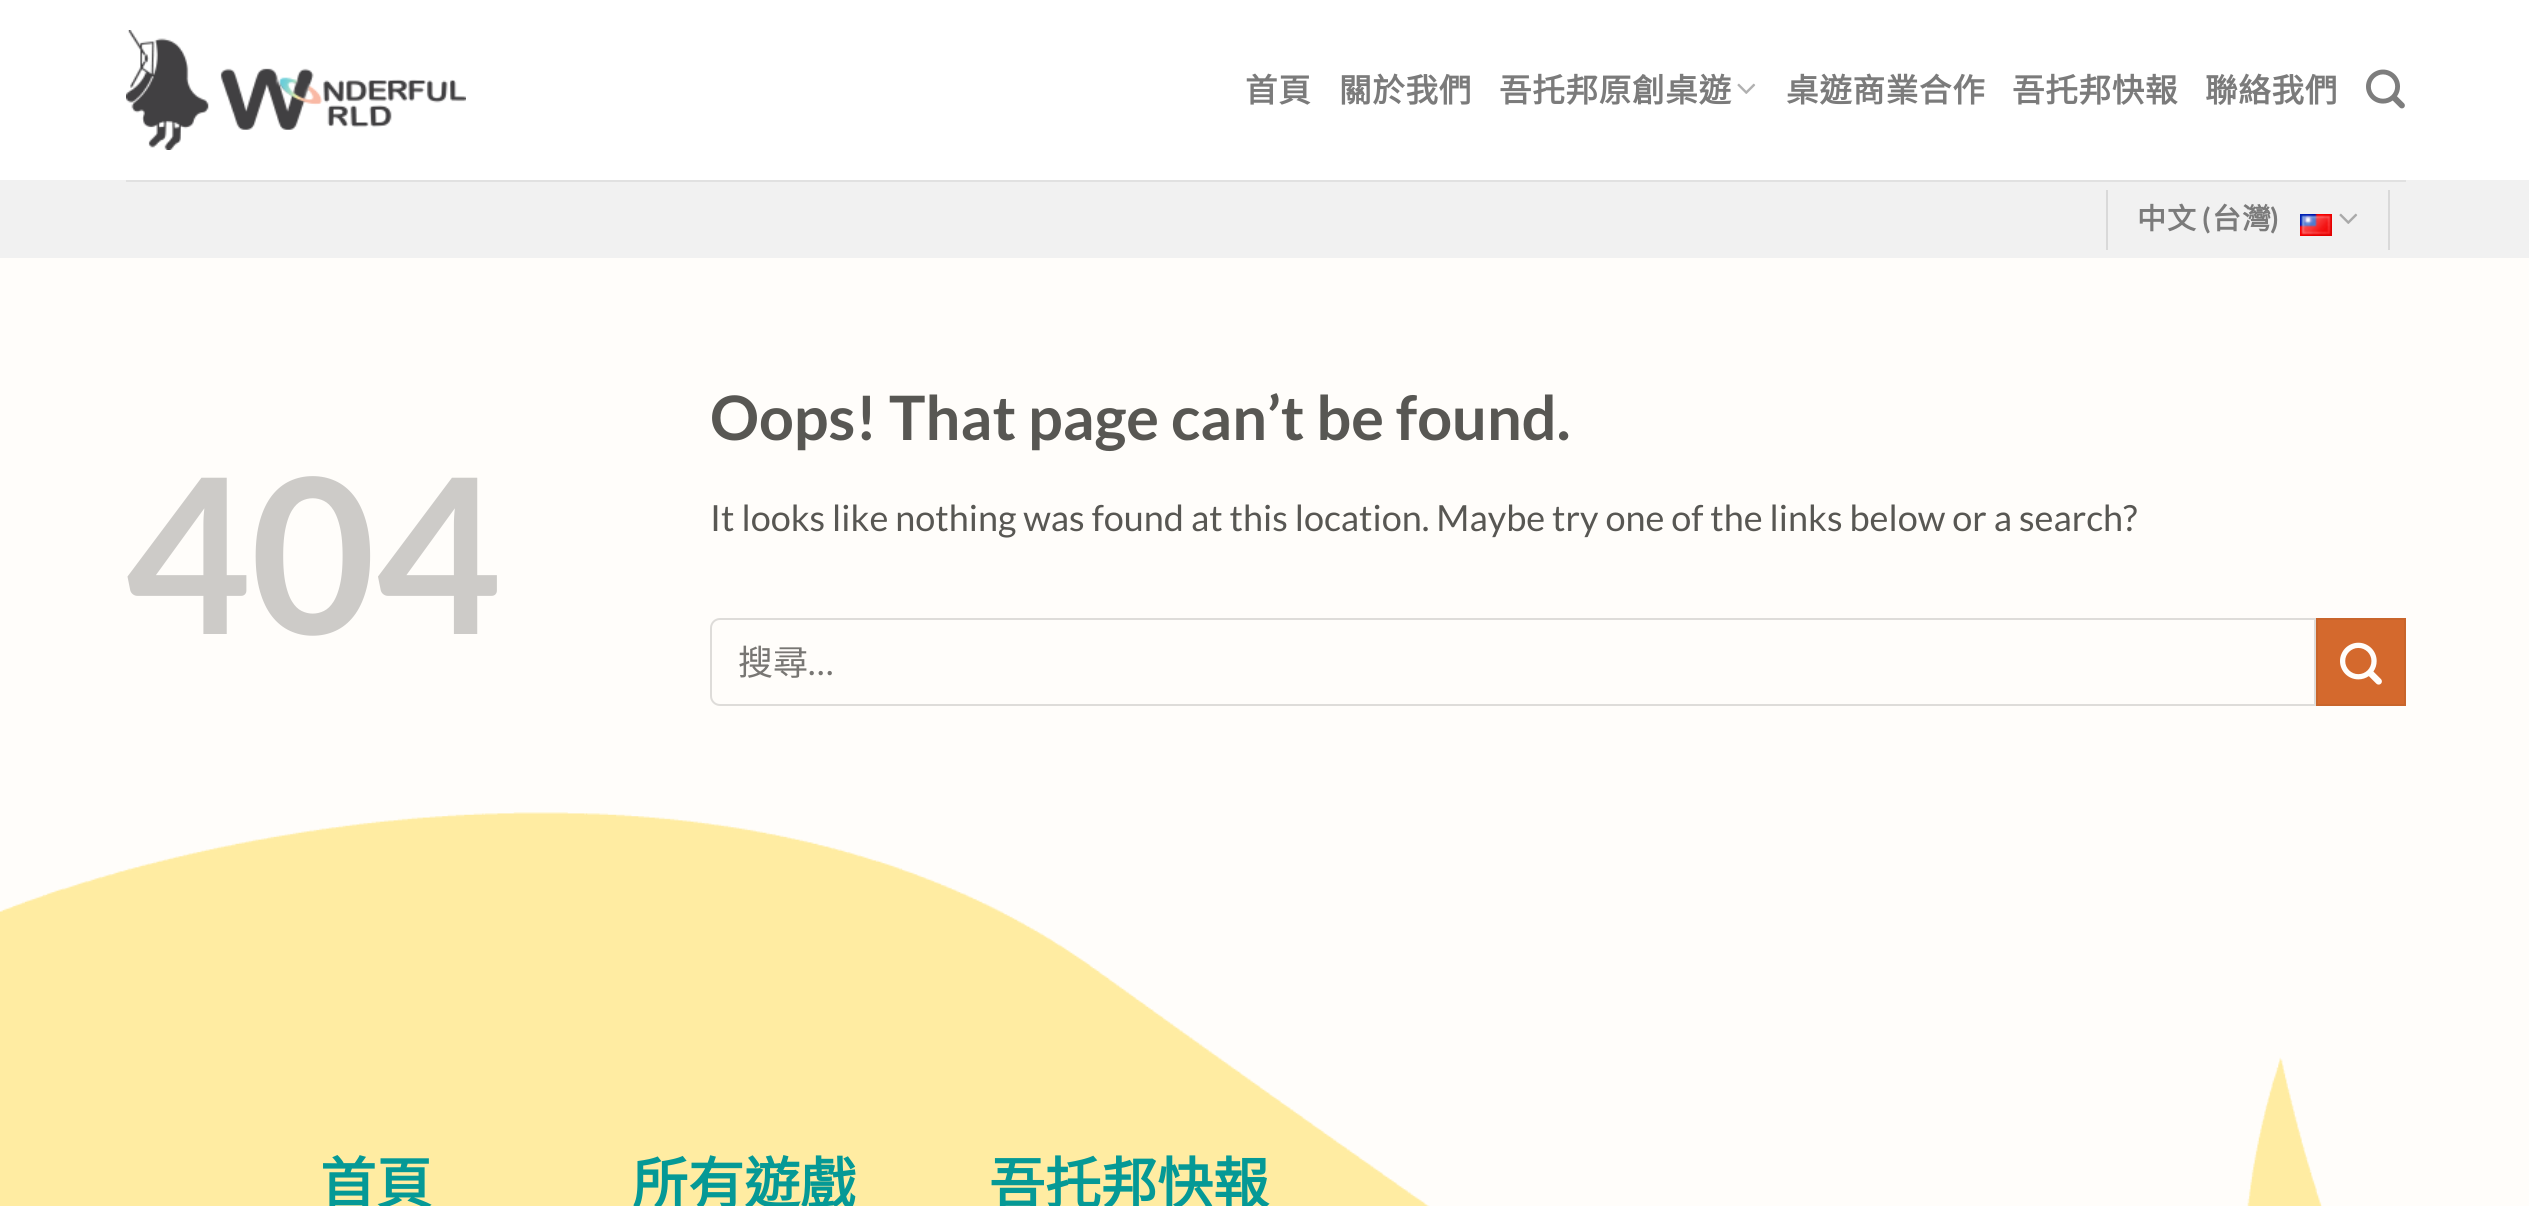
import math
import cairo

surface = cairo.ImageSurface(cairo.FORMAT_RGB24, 2529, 1206)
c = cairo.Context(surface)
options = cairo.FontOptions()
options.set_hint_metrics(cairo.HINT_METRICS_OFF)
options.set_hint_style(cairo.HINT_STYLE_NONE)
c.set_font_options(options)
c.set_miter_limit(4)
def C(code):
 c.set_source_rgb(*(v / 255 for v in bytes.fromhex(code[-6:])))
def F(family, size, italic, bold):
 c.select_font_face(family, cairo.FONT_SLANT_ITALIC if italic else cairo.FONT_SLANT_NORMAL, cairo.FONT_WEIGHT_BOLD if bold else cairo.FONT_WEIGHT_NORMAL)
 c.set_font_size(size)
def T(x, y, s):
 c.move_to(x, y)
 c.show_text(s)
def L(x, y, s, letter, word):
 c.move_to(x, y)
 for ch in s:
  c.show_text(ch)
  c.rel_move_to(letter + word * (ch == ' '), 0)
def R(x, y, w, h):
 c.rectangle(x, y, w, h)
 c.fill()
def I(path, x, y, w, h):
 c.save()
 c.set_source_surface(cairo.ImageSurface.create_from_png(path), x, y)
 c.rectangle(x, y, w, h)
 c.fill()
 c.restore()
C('fffdfa')
c.paint()
C('ffffff')
R(0,0,2529,180)
I('1.png',126,30,340,120)
F('Noto Sans CJK TC',32.5,0,1)
C('7b7b7b')
L(1245,102,'首頁',.75,0)
L(1339,102,'關於我們',.75,0)
L(1499,102,'吾托邦原創桌遊',.75,0)
I('2.png',1737,83,19,11)
L(1786,102,'桌遊商業合作',.75,0)
L(2012,102,'吾托邦快報',.75,0)
L(2205,102,'聯絡我們',.75,0)
I('3.png',2366,69,39,40)
C('f1f1f1')
R(0,180,2529,78)
C('e1e1e1')
R(126,180,2280,2)
C('d9d9d9')
R(2106,190,2,60)
F('Noto Sans CJK TC',29,0,1)
C('7b7b7b')
L(2137,229,'中文',1,0)
F('Lato',29,0,1)
L(2202,229,'(',1,0)
F('Noto Sans CJK TC',29,0,1)
L(2212,229,'台灣',1,0)
F('Lato',29,0,1)
L(2270,229,')',1,0)
I('4.png',2300,214,32,22)
I('5.png',2339,213,19,11)
C('d9d9d9')
R(2388,190,2,60)
F('Lato',216,0,1)
C('cdcbc8')
T(125,634,'404')
F('Lato',61.25,0,1)
C('585753')
T(710,440,'Oops! That page can’t be found.')
F('Lato',36,0,0)
T(710,531,'It looks like nothing was found at this location. Maybe try one of the links below or a search?')
c.new_path()
c.move_to(720,619)
c.line_to(2315,619)
c.line_to(2315,705)
c.line_to(720,705)
c.curve_to(715,705,711,701,711,696)
c.line_to(711,628)
c.curve_to(711,623,715,619,720,619)
c.close_path()
C('dedcd9')
c.stroke()
F('Noto Sans CJK TC',35,0,0)
C('787673')
T(738,675,'搜尋')
F('Lato',35,0,0)
T(808,675,'…')
C('d4692d')
c.rectangle(2317,619,88,86)
c.fill_preserve()
C('c9652b')
c.stroke()
I('6.png',2340,642,42,43)
I('7.png',0,812,2322,394)
F('Noto Sans CJK TC',56,0,1)
C('059996')
T(320,1204,'首頁')
T(632,1204,'所有遊戲')
T(989,1204,'吾托邦快報')
surface.write_to_png('o.png')
